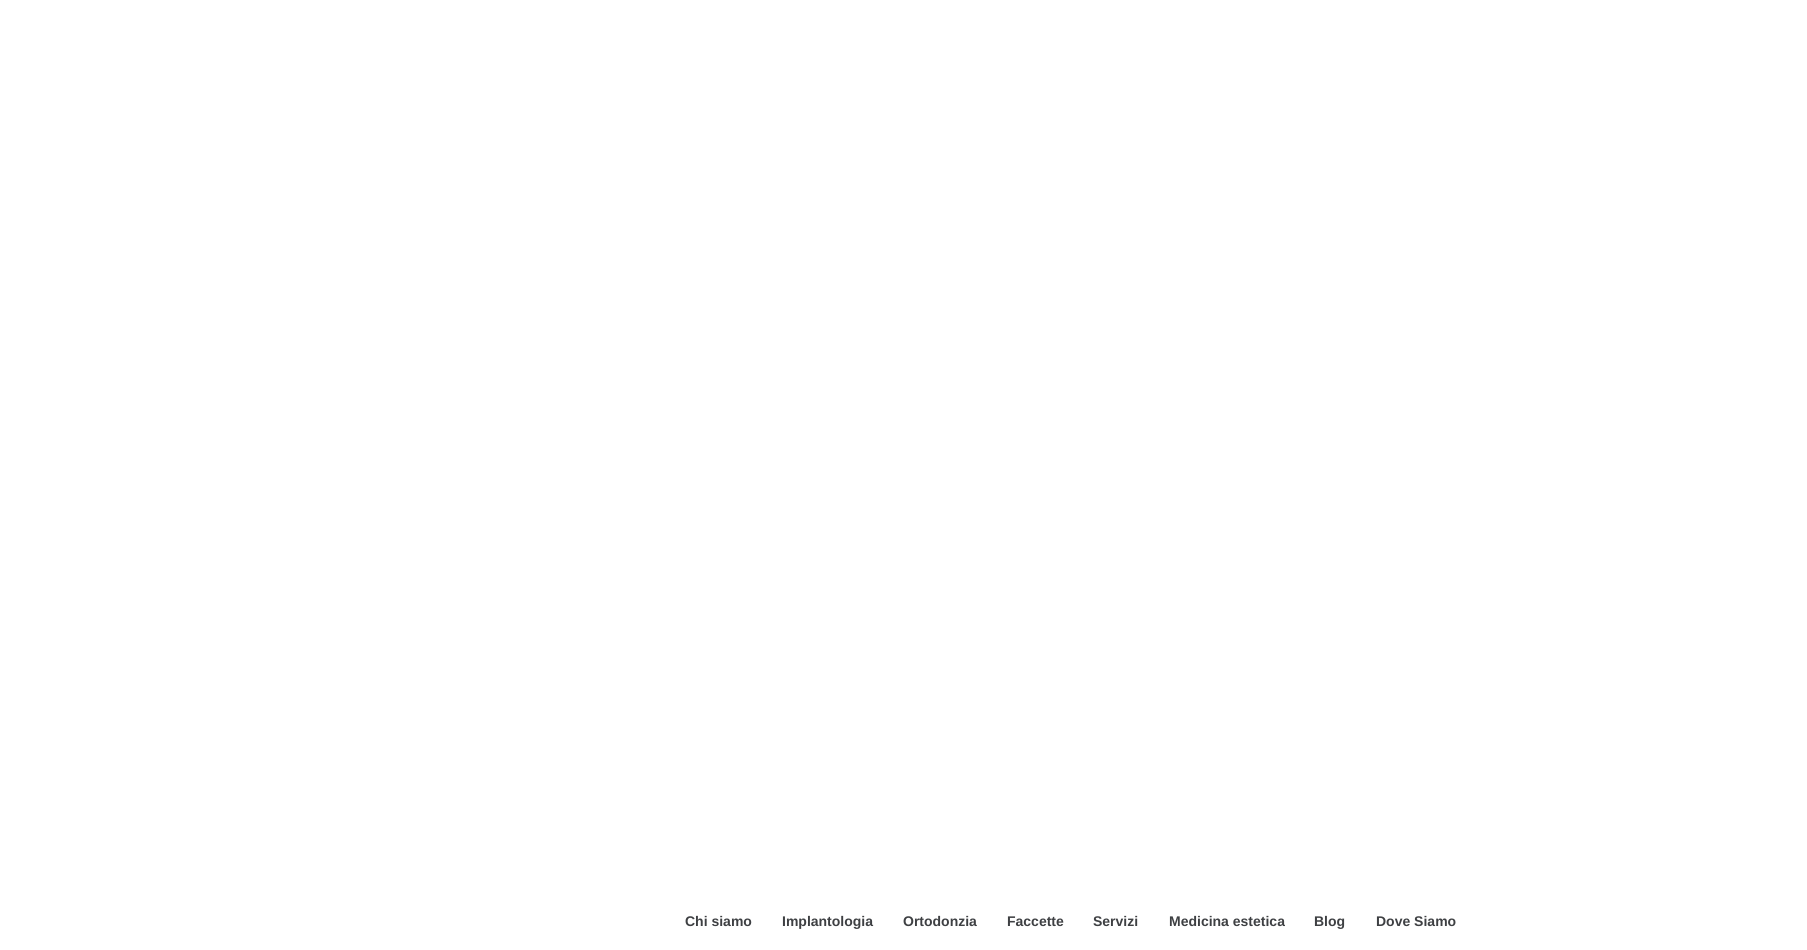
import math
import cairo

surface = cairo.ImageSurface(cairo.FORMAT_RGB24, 1807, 950)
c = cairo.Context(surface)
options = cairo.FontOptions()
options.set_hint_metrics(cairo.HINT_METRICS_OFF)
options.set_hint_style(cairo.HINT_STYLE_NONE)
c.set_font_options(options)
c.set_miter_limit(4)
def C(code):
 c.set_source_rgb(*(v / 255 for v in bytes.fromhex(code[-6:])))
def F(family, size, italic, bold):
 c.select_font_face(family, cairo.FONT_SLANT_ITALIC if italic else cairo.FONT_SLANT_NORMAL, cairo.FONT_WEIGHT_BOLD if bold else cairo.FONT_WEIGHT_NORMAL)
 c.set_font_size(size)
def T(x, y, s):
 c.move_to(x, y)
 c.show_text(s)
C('ffffff')
c.paint()
F('Liberation Sans',14,0,1)
C('3e4043')
T(685,926,'Chi siamo')
T(782,926,'Implantologia')
T(903,926,'Ortodonzia')
T(1007,926,'Faccette')
T(1093,926,'Servizi')
T(1169,926,'Medicina estetica')
T(1314,926,'Blog')
T(1376,926,'Dove Siamo')
surface.write_to_png('o.png')
